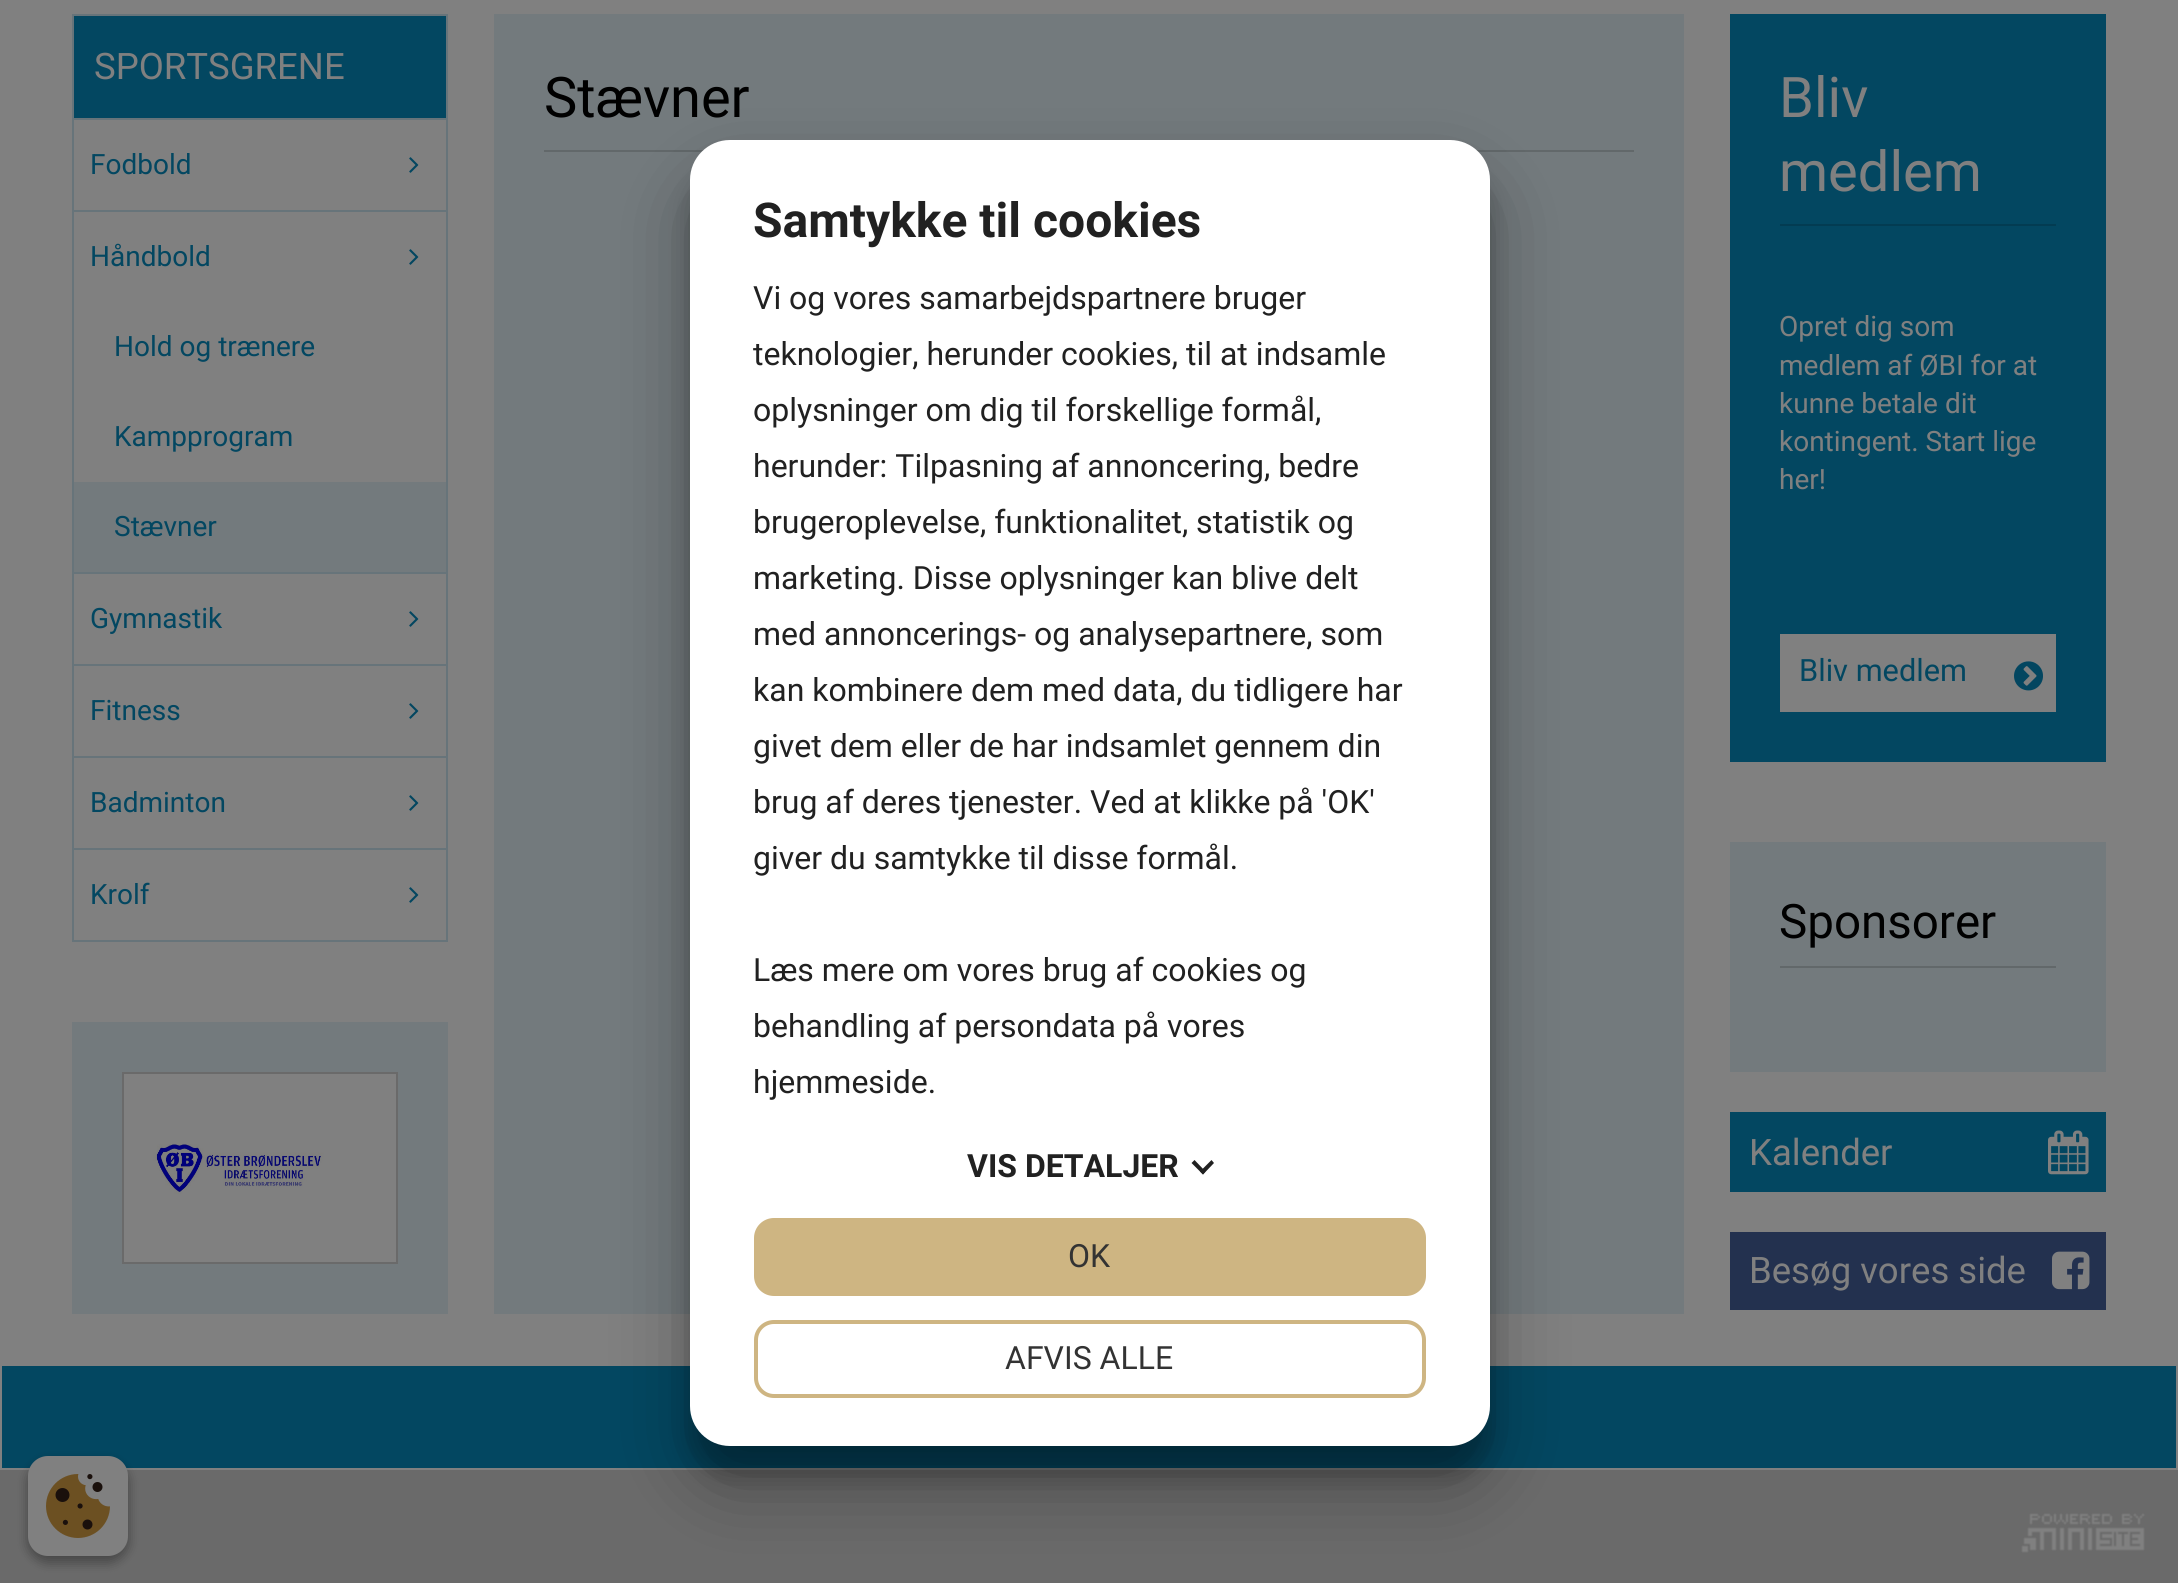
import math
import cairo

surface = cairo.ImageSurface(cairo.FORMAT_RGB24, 2178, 1583)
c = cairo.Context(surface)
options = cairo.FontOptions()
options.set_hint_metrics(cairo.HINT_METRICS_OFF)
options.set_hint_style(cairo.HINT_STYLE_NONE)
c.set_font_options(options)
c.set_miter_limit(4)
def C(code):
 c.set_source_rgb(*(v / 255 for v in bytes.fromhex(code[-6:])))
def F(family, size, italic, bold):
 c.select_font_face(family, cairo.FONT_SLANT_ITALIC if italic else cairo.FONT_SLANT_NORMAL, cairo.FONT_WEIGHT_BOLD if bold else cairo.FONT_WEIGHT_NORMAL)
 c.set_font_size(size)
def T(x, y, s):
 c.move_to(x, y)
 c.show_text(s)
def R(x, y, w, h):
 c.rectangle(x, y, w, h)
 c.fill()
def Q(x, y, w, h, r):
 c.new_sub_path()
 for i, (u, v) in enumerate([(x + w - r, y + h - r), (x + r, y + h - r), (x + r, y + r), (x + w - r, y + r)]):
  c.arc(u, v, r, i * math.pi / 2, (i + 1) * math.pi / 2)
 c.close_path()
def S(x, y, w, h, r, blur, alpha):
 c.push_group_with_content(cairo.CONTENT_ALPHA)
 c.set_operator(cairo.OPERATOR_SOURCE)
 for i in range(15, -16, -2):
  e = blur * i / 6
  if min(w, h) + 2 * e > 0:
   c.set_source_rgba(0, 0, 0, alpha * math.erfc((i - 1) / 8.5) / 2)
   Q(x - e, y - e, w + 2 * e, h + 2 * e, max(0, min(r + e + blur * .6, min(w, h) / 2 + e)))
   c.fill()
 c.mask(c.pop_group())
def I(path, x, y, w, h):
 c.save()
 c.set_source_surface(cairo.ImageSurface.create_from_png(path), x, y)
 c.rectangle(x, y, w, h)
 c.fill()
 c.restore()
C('6a6a6a')
c.paint()
C('808080')
R(0,0,2178,1470)
c.rectangle(73,15,374,926)
C('67747a')
c.stroke()
C('034761')
R(74,16,372,102)
F('Roboto',36.5,0,0)
C('808080')
T(94,79,'SPORTSGRENE')
C('67747a')
R(74,118,372,2)
F('Roboto',28,0,0)
C('034761')
T(90,174,'Fodbold')
I('1.png',409,157,10,16)
C('67747a')
R(74,210,372,2)
C('034761')
T(90,266,'Håndbold')
I('1.png',409,249,10,16)
T(114,356,'Hold og trænere')
T(114,446,'Kampprogram')
C('737a7d')
R(74,482,372,90)
C('034761')
T(114,536,'Stævner')
C('67747a')
R(74,572,372,2)
C('034761')
T(90,628,'Gymnastik')
I('1.png',409,611,10,16)
C('67747a')
R(74,664,372,2)
C('034761')
T(90,720,'Fitness')
I('1.png',409,703,10,16)
C('67747a')
R(74,756,372,2)
C('034761')
T(90,812,'Badminton')
I('1.png',409,795,10,16)
C('67747a')
R(74,848,372,2)
C('034761')
T(90,904,'Krolf')
I('1.png',409,887,10,16)
C('737a7d')
R(72,1022,376,292)
c.rectangle(123,1073,274,190)
C('6a6a6a')
c.stroke()
I('2.png',124,1074,272,188)
C('737a7d')
R(494,14,1190,1300)
F('Roboto',56,0,0)
C('000000')
T(544,117,'Stævner')
C('62686a')
R(544,150,1090,2)
C('034761')
R(1730,14,376,748)
C('808080')
T(1779,117,'Bliv')
T(1779,191,'medlem')
C('033c52')
R(1780,224,276,2)
F('Roboto',28,0,0)
C('808080')
T(1779,336,'Opret dig som')
T(1779,375,'medlem af ØBI for at')
T(1779,413,'kunne betale dit')
T(1779,451,'kontingent. Start lige')
T(1779,489,'her!')
R(1780,634,276,78)
F('Roboto',30.75,0,0)
C('034761')
T(1799,681,'Bliv medlem')
I('3.png',2014,661,29,30)
C('737a7d')
R(1730,842,376,230)
F('Roboto',47.5,0,0)
C('000000')
T(1779,938,'Sponsorer')
C('62686a')
R(1780,966,276,2)
C('034761')
R(1730,1112,376,80)
F('Roboto',36.5,0,0)
C('808080')
T(1749,1165,'Kalender')
I('4.png',2048,1130,41,45)
C('23314f')
R(1730,1232,376,78)
C('808080')
T(1749,1283,'Besøg vores side')
I('5.png',2052,1251,38,39)
C('034761')
R(2,1366,2174,102)
I('6.png',2021,1513,124,40)
C('000000')
S(690,170,800,1306,40,12,.22)
S(690,178,800,1306,40,38,.3)
C('ffffff')
Q(690,140,800,1306,40)
c.fill()
F('Roboto',48,0,1)
C('212121')
T(753,237,'Samtykke til cookies')
F('Roboto',32,0,0)
T(753,309,'Vi og vores samarbejdspartnere bruger')
T(753,365,'teknologier, herunder cookies, til at indsamle')
T(753,421,'oplysninger om dig til forskellige formål,')
T(753,477,'herunder: Tilpasning af annoncering, bedre')
T(753,533,'brugeroplevelse, funktionalitet, statistik og')
T(753,589,'marketing. Disse oplysninger kan blive delt')
T(753,645,'med annoncerings- og analysepartnere, som')
T(753,701,'kan kombinere dem med data, du tidligere har')
T(753,757,'givet dem eller de har indsamlet gennem din')
T(753,813,'brug af deres tjenester. Ved at klikke på \'OK\'')
T(753,869,'giver du samtykke til disse formål.')
T(753,981,'Læs mere om vores brug af cookies og')
T(753,1037,'behandling af persondata på vores')
T(753,1093,'hjemmeside.')
F('Roboto',32,0,1)
T(967,1177,'VIS DETALJER')
c.new_path()
c.move_to(1211.5,1160)
c.line_to(1214,1163)
c.line_to(1203,1174.5)
c.line_to(1200,1171.5)
c.close_path()
c.fill()
c.new_path()
c.move_to(1194.5,1160)
c.line_to(1205.5,1171.5)
c.line_to(1203,1174.5)
c.line_to(1191.5,1163)
c.close_path()
c.fill()
C('ceb582')
Q(756,1220,668,74,18)
c.fill_preserve()
c.set_line_width(4)
c.stroke()
F('Roboto',32,0,0)
C('333333')
T(1068,1267,'OK')
Q(756,1322,668,74,18)
C('ceb582')
c.stroke()
C('333333')
T(1005,1369,'AFVIS ALLE')
C('000000')
S(28,1462,100,100,20,6,.23)
S(28,1462,100,100,20,6,.16)
C('808080')
Q(28,1456,100,100,20)
c.fill()
I('7.png',46,1474,64,64)
surface.write_to_png('o.png')
